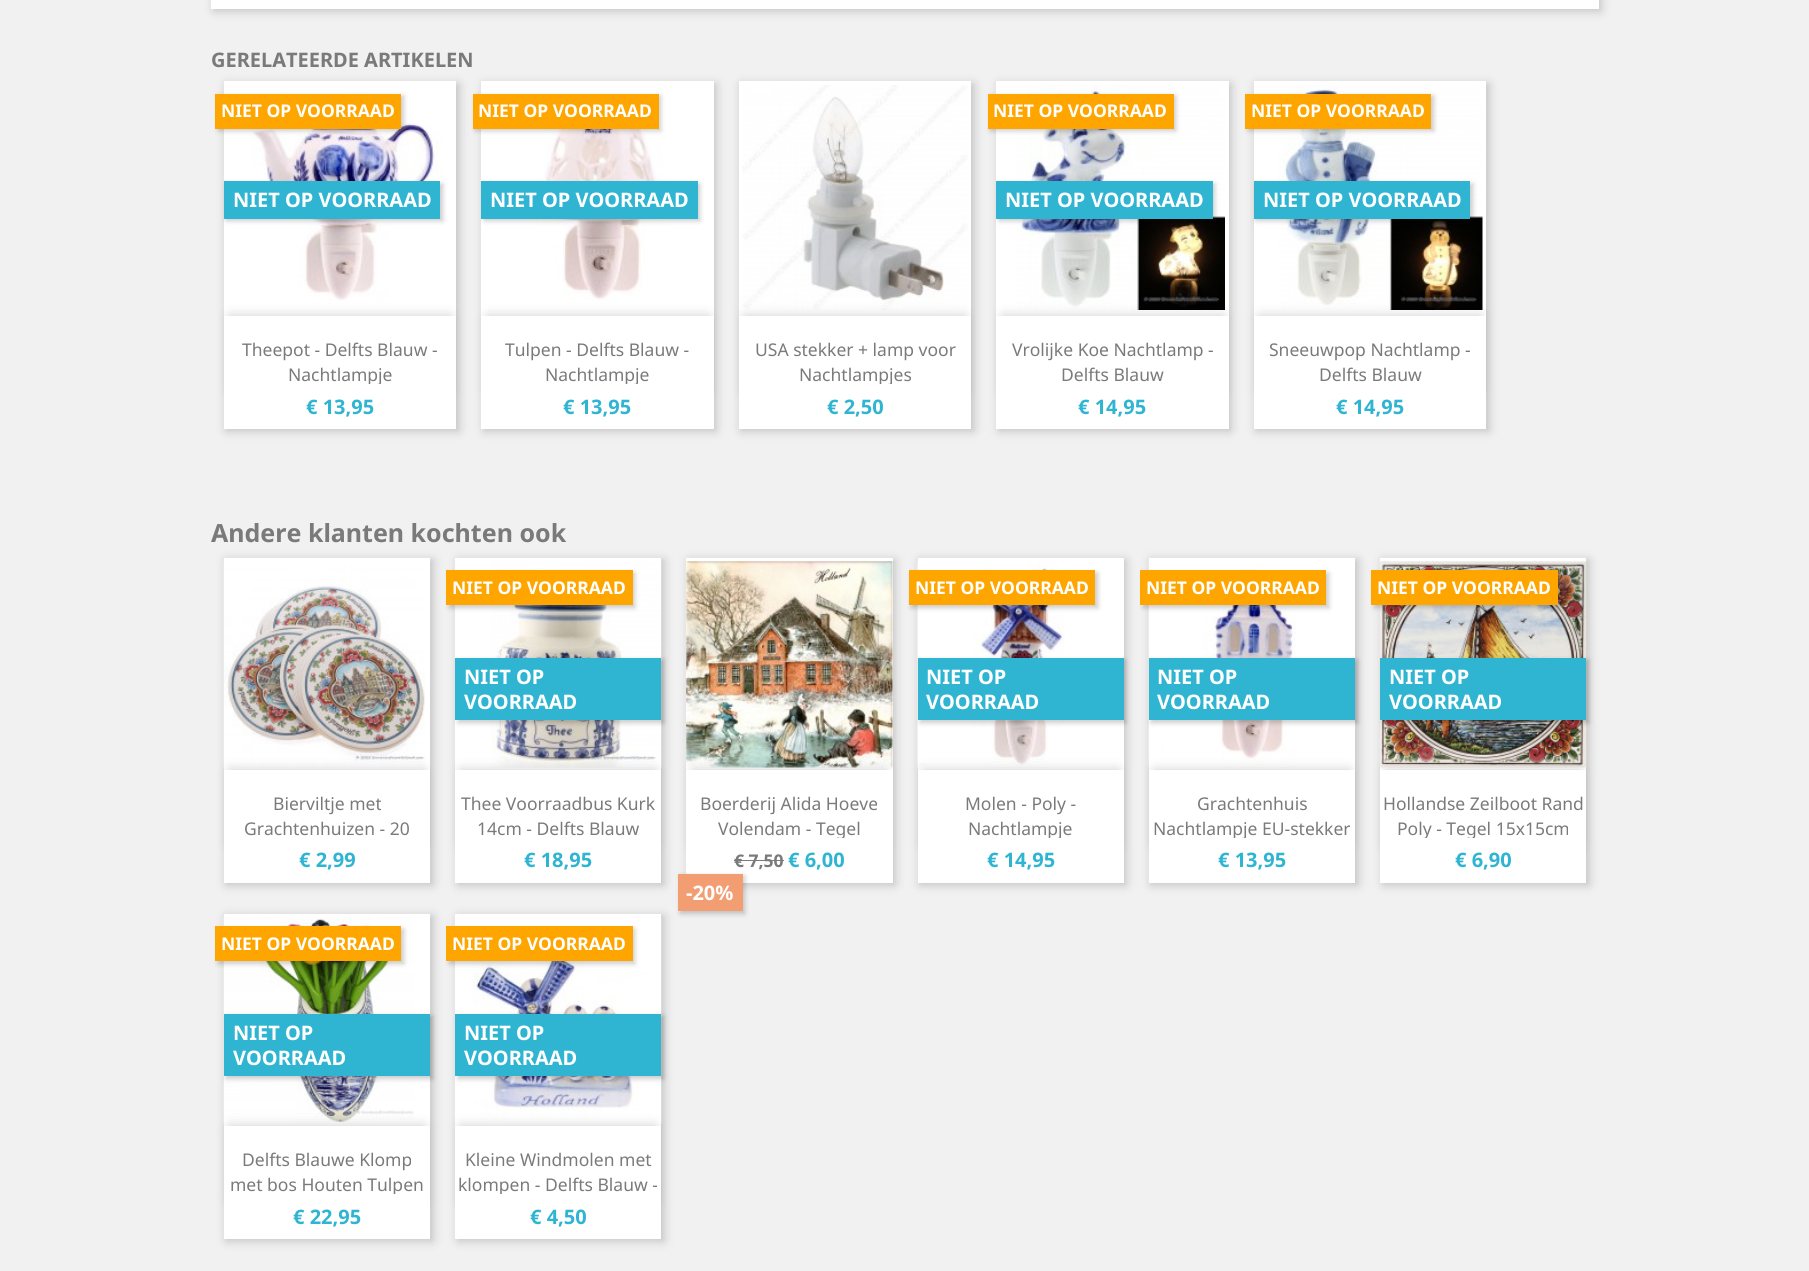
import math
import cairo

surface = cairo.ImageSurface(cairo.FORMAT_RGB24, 1809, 1271)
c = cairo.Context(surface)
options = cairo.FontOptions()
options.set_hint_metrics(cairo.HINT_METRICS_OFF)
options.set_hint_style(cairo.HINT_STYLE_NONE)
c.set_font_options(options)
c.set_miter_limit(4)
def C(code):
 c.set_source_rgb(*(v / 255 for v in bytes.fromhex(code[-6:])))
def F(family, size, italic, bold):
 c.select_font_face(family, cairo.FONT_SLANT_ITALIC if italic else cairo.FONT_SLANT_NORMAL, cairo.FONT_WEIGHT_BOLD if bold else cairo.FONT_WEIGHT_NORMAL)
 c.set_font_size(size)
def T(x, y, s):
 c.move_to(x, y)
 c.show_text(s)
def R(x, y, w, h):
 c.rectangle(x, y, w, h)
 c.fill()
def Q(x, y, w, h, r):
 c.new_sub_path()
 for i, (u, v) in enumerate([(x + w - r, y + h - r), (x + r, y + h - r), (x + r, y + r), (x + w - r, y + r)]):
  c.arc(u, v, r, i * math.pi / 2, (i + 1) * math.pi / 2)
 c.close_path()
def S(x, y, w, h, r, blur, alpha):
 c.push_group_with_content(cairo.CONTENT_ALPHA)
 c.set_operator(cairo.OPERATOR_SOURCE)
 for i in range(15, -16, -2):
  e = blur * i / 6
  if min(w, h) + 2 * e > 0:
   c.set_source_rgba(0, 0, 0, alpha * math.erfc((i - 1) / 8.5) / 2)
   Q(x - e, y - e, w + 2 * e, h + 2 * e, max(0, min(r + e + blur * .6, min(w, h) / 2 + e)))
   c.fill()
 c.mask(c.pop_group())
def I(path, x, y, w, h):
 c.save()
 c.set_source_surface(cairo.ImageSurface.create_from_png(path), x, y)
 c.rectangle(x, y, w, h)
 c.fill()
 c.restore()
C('f1f1f1')
c.paint()
C('000000')
S(214,-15,1387,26,0,5,.2)
C('ffffff')
R(211,0,1388,9)
F('Noto Sans',20,0,1)
C('7a7a7a')
T(211,67,'GERELATEERDE ARTIKELEN')
C('000000')
S(226,84,233,347,0,5,.2)
C('ffffff')
R(224,81,232,235)
I('1.png',252,91,192,210)
C('000000')
S(218,96,186,35,0,2.5,.2)
C('ffa500')
R(215,94,186,35)
F('Noto Sans',17.5,0,1)
C('ffffff')
T(221,117,'NIET OP VOORRAAD')
C('000000')
S(226,184,217,37,0,2.5,.2)
C('2fb5d2')
R(224,181,216,38)
F('Noto Sans',20,0,1)
C('ffffff')
T(233,207,'NIET OP VOORRAAD')
C('000000')
S(230,316,220,75,0,6,.2)
C('ffffff')
R(224,316,232,113)
F('Noto Sans',17.5,0,0)
C('7a7a7a')
T(242,356,'Theepot - Delfts Blauw -')
c.save()
c.rectangle(226,336,228,48)
c.clip()
T(288,381,'Nachtlampje')
c.restore()
F('Noto Sans',20,0,1)
C('2fb5d2')
T(306,414,'€ 13,95')
C('000000')
S(484,84,232,347,0,5,.2)
C('ffffff')
R(481,81,233,235)
I('2.png',535,95,132,206)
C('000000')
S(475,96,186,35,0,2.5,.2)
C('ffa500')
R(473,94,186,35)
F('Noto Sans',17.5,0,1)
C('ffffff')
T(478,117,'NIET OP VOORRAAD')
C('000000')
S(484,184,216,37,0,2.5,.2)
C('2fb5d2')
R(481,181,217,38)
F('Noto Sans',20,0,1)
C('ffffff')
T(490,207,'NIET OP VOORRAAD')
C('000000')
S(488,316,220,75,0,6,.2)
C('ffffff')
R(481,316,233,113)
F('Noto Sans',17.5,0,0)
C('7a7a7a')
T(505,356,'Tulpen - Delfts Blauw -')
c.save()
c.rectangle(484,336,227,48)
c.clip()
T(545,381,'Nachtlampje')
c.restore()
F('Noto Sans',20,0,1)
C('2fb5d2')
T(563,414,'€ 13,95')
C('000000')
S(741,84,233,347,0,5,.2)
C('ffffff')
R(739,81,232,235)
I('3.png',742,85,226,225)
C('000000')
S(745,316,220,75,0,6,.2)
C('ffffff')
R(739,316,232,113)
F('Noto Sans',17.5,0,0)
C('7a7a7a')
T(755,356,'USA stekker + lamp voor')
c.save()
c.rectangle(741,336,228,48)
c.clip()
T(799,381,'Nachtlampjes')
c.restore()
F('Noto Sans',20,0,1)
C('2fb5d2')
T(827,414,'€ 2,50')
C('000000')
S(999,84,232,347,0,5,.2)
C('ffffff')
R(996,81,233,235)
I('4.png',1016,85,209,225)
C('000000')
S(990,96,186,35,0,2.5,.2)
C('ffa500')
R(988,94,186,35)
F('Noto Sans',17.5,0,1)
C('ffffff')
T(993,117,'NIET OP VOORRAAD')
C('000000')
S(999,184,216,37,0,2.5,.2)
C('2fb5d2')
R(996,181,217,38)
F('Noto Sans',20,0,1)
C('ffffff')
T(1005,207,'NIET OP VOORRAAD')
C('000000')
S(1003,316,220,75,0,6,.2)
C('ffffff')
R(996,316,233,113)
F('Noto Sans',17.5,0,0)
C('7a7a7a')
T(1012,356,'Vrolijke Koe Nachtlamp -')
T(1061,381,'Delfts Blauw')
F('Noto Sans',20,0,1)
C('2fb5d2')
T(1078,414,'€ 14,95')
C('000000')
S(1256,84,233,347,0,5,.2)
C('ffffff')
R(1254,81,232,235)
I('5.png',1278,85,205,225)
C('000000')
S(1248,96,186,35,0,2.5,.2)
C('ffa500')
R(1245,94,186,35)
F('Noto Sans',17.5,0,1)
C('ffffff')
T(1251,117,'NIET OP VOORRAAD')
C('000000')
S(1256,184,217,37,0,2.5,.2)
C('2fb5d2')
R(1254,181,216,38)
F('Noto Sans',20,0,1)
C('ffffff')
T(1263,207,'NIET OP VOORRAAD')
C('000000')
S(1260,316,220,75,0,6,.2)
C('ffffff')
R(1254,316,232,113)
F('Noto Sans',17.5,0,0)
C('7a7a7a')
T(1269,356,'Sneeuwpop Nachtlamp -')
T(1319,381,'Delfts Blauw')
F('Noto Sans',20,0,1)
C('2fb5d2')
T(1336,414,'€ 14,95')
F('Noto Sans',25,0,1)
C('7a7a7a')
T(211,542,'Andere klanten kochten ook')
C('000000')
S(226,560,207,325,0,5,.2)
C('ffffff')
R(224,558,206,212)
I('6.png',223,562,202,205)
C('000000')
S(230,770,194,75,0,6,.2)
C('ffffff')
R(224,770,206,113)
F('Noto Sans',17.5,0,0)
C('7a7a7a')
T(273,810,'Bierviltje met')
T(244,835,'Grachtenhuizen - 20')
F('Noto Sans',20,0,1)
C('2fb5d2')
T(299,867,'€ 2,99')
C('000000')
S(458,560,206,325,0,5,.2)
C('ffffff')
R(455,558,206,212)
I('7.png',491,561,171,207)
C('000000')
S(449,573,186,35,0,2.5,.2)
C('ffa500')
R(446,570,187,35)
F('Noto Sans',17.5,0,1)
C('ffffff')
T(452,594,'NIET OP VOORRAAD')
C('000000')
S(458,660,206,63,0,2.5,.2)
C('2fb5d2')
R(455,658,206,62)
F('Noto Sans',20,0,1)
C('ffffff')
T(464,684,'NIET OP')
T(464,709,'VOORRAAD')
C('000000')
S(461,770,194,75,0,6,.2)
C('ffffff')
R(455,770,206,113)
F('Noto Sans',17.5,0,0)
C('7a7a7a')
T(461,810,'Thee Voorraadbus Kurk')
T(477,835,'14cm - Delfts Blauw')
F('Noto Sans',20,0,1)
C('2fb5d2')
T(524,867,'€ 18,95')
C('000000')
S(689,560,206,325,0,5,.2)
C('ffffff')
R(686,558,207,212)
I('8.png',686,561,207,207)
C('000000')
S(693,770,193,75,0,6,.2)
C('ffffff')
R(686,770,207,113)
F('Noto Sans',17.5,0,0)
C('7a7a7a')
T(700,810,'Boerderij Alida Hoeve')
c.save()
c.rectangle(689,790,201,48)
c.clip()
T(718,835,'Volendam - Tegel')
c.restore()
F('Noto Sans',17.5,0,1)
T(734,867,'€ 7,50')
R(734,860,50,1)
F('Noto Sans',20,0,1)
C('2fb5d2')
T(788,867,'€ 6,00')
C('000000')
S(680,876,65,38,0,2.5,.2)
S(458,916,206,325,0,5,.2)
C('f39d72')
R(678,874,65,37)
C('ffffff')
T(686,900,'-20%')
C('000000')
S(920,560,206,325,0,5,.2)
C('ffffff')
R(918,558,206,212)
I('9.png',917,561,148,207)
C('000000')
S(911,573,187,35,0,2.5,.2)
C('ffa500')
R(909,570,186,35)
F('Noto Sans',17.5,0,1)
C('ffffff')
T(915,594,'NIET OP VOORRAAD')
C('000000')
S(920,660,206,63,0,2.5,.2)
C('2fb5d2')
R(918,658,206,62)
F('Noto Sans',20,0,1)
C('ffffff')
T(926,684,'NIET OP')
T(926,709,'VOORRAAD')
C('000000')
S(924,770,194,75,0,6,.2)
C('ffffff')
R(918,770,206,113)
F('Noto Sans',17.5,0,0)
C('7a7a7a')
T(965,810,'Molen - Poly -')
c.save()
c.rectangle(920,790,201,48)
c.clip()
T(968,835,'Nachtlampje')
c.restore()
F('Noto Sans',20,0,1)
C('2fb5d2')
T(987,867,'€ 14,95')
C('000000')
S(1151,560,207,325,0,5,.2)
C('ffffff')
R(1149,558,206,212)
I('10.png',1148,562,148,205)
C('000000')
S(1143,573,186,35,0,2.5,.2)
C('ffa500')
R(1140,570,186,35)
F('Noto Sans',17.5,0,1)
C('ffffff')
T(1146,594,'NIET OP VOORRAAD')
C('000000')
S(1151,660,207,63,0,2.5,.2)
C('2fb5d2')
R(1149,658,206,62)
F('Noto Sans',20,0,1)
C('ffffff')
T(1157,684,'NIET OP')
T(1157,709,'VOORRAAD')
C('000000')
S(1155,770,194,75,0,6,.2)
C('ffffff')
R(1149,770,206,113)
F('Noto Sans',17.5,0,0)
C('7a7a7a')
T(1197,810,'Grachtenhuis')
c.save()
c.rectangle(1151,790,202,48)
c.clip()
T(1153,835,'Nachtlampje EU-stekker')
c.restore()
F('Noto Sans',20,0,1)
C('2fb5d2')
T(1218,867,'€ 13,95')
C('000000')
S(1383,560,206,325,0,5,.2)
C('ffffff')
R(1380,558,206,212)
I('11.png',1380,561,207,207)
C('000000')
S(1374,573,186,35,0,2.5,.2)
C('ffa500')
R(1371,570,187,35)
F('Noto Sans',17.5,0,1)
C('ffffff')
T(1377,594,'NIET OP VOORRAAD')
C('000000')
S(1383,660,206,63,0,2.5,.2)
C('2fb5d2')
R(1380,658,206,62)
F('Noto Sans',20,0,1)
C('ffffff')
T(1389,684,'NIET OP')
T(1389,709,'VOORRAAD')
C('000000')
S(1386,770,194,75,0,6,.2)
C('ffffff')
R(1380,770,206,113)
F('Noto Sans',17.5,0,0)
C('7a7a7a')
T(1383,810,'Hollandse Zeilboot Rand')
c.save()
c.rectangle(1383,790,201,48)
c.clip()
T(1397,835,'Poly - Tegel 15x15cm')
c.restore()
F('Noto Sans',20,0,1)
C('2fb5d2')
T(1455,867,'€ 6,90')
C('000000')
S(226,916,207,325,0,5,.2)
C('ffffff')
R(224,914,206,212)
I('12.png',223,917,191,207)
C('000000')
S(218,929,186,35,0,2.5,.2)
C('ffa500')
R(215,926,186,35)
F('Noto Sans',17.5,0,1)
C('ffffff')
T(221,950,'NIET OP VOORRAAD')
C('000000')
S(226,1016,207,63,0,2.5,.2)
C('2fb5d2')
R(224,1014,206,62)
F('Noto Sans',20,0,1)
C('ffffff')
T(233,1040,'NIET OP')
T(233,1065,'VOORRAAD')
C('000000')
S(230,1126,194,75,0,6,.2)
C('ffffff')
R(224,1126,206,113)
F('Noto Sans',17.5,0,0)
C('7a7a7a')
T(242,1166,'Delfts Blauwe Klomp')
c.save()
c.rectangle(226,1146,202,48)
c.clip()
T(230,1191,'met bos Houten Tulpen')
c.restore()
F('Noto Sans',20,0,1)
C('2fb5d2')
T(293,1224,'€ 22,95')
C('ffffff')
R(455,914,206,212)
I('13.png',473,918,189,206)
C('000000')
S(449,929,186,35,0,2.5,.2)
C('ffa500')
R(446,926,187,35)
F('Noto Sans',17.5,0,1)
C('ffffff')
T(452,950,'NIET OP VOORRAAD')
C('000000')
S(458,1016,206,63,0,2.5,.2)
C('2fb5d2')
R(455,1014,206,62)
F('Noto Sans',20,0,1)
C('ffffff')
T(464,1040,'NIET OP')
T(464,1065,'VOORRAAD')
C('000000')
S(461,1126,194,75,0,6,.2)
C('ffffff')
R(455,1126,206,113)
F('Noto Sans',17.5,0,0)
C('7a7a7a')
T(465,1166,'Kleine Windmolen met')
c.save()
c.rectangle(458,1146,201,48)
c.clip()
T(458,1191,'klompen - Delfts Blauw -')
c.restore()
F('Noto Sans',20,0,1)
C('2fb5d2')
T(530,1224,'€ 4,50')
surface.write_to_png('o.png')
